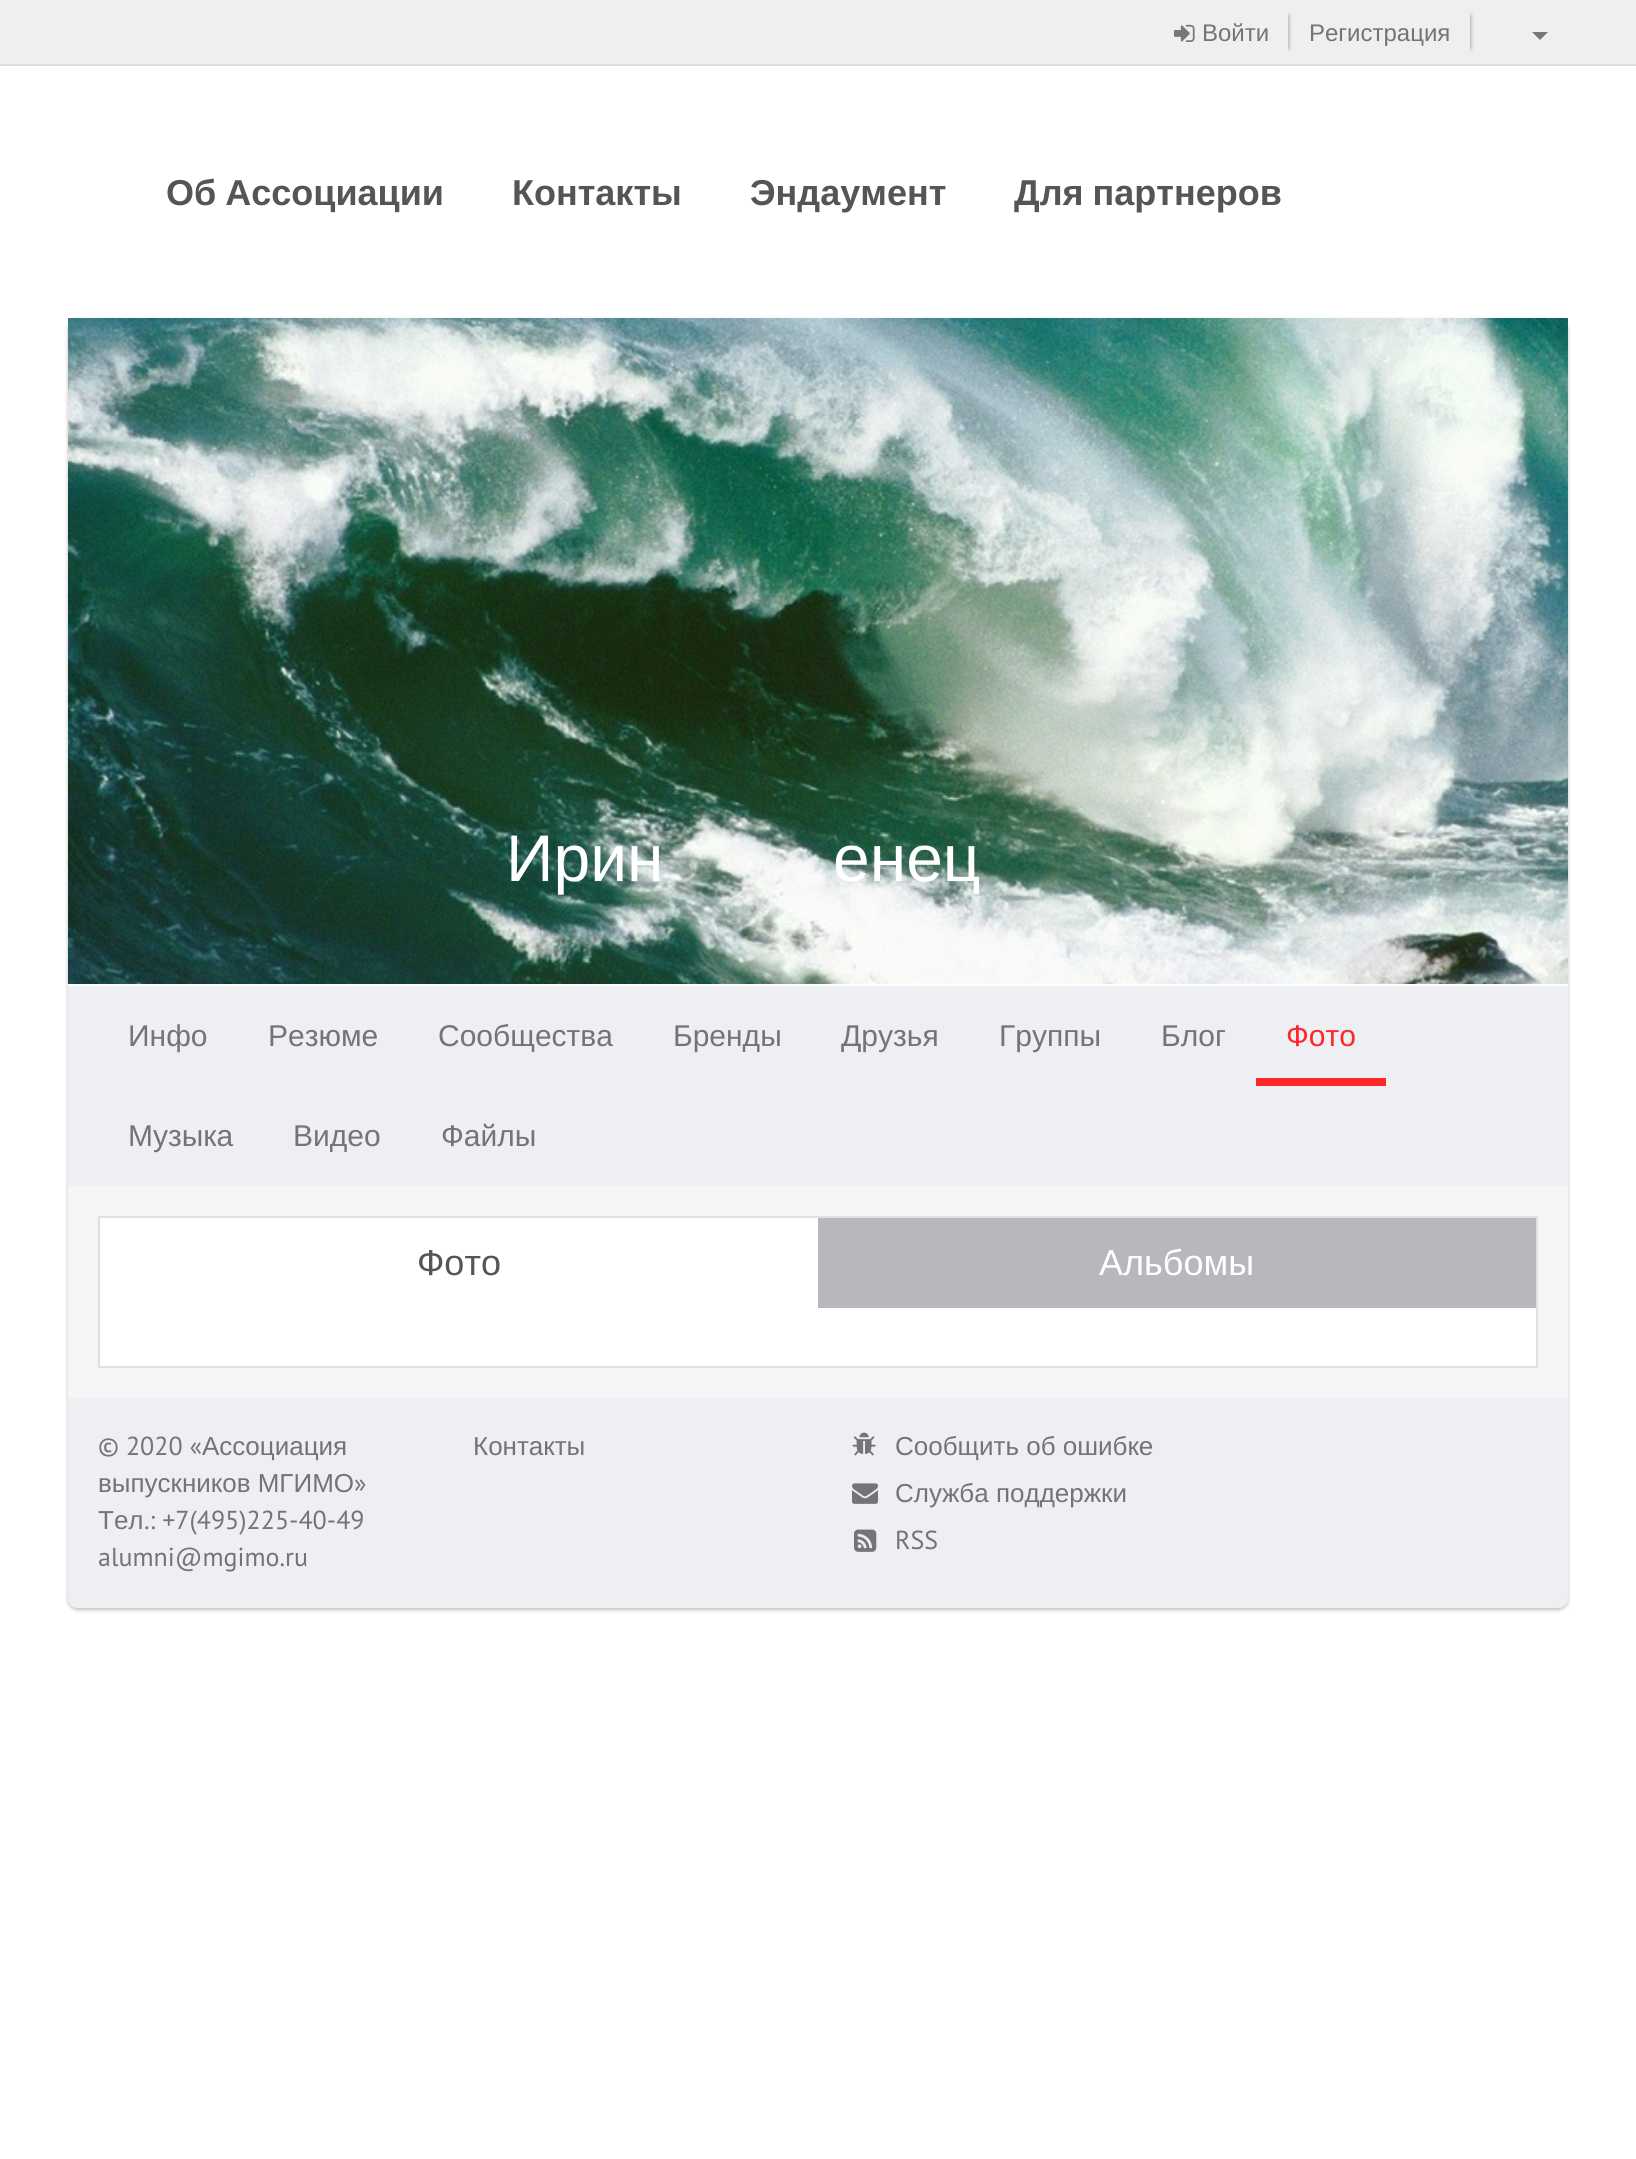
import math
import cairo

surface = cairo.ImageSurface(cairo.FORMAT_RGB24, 1636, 2159)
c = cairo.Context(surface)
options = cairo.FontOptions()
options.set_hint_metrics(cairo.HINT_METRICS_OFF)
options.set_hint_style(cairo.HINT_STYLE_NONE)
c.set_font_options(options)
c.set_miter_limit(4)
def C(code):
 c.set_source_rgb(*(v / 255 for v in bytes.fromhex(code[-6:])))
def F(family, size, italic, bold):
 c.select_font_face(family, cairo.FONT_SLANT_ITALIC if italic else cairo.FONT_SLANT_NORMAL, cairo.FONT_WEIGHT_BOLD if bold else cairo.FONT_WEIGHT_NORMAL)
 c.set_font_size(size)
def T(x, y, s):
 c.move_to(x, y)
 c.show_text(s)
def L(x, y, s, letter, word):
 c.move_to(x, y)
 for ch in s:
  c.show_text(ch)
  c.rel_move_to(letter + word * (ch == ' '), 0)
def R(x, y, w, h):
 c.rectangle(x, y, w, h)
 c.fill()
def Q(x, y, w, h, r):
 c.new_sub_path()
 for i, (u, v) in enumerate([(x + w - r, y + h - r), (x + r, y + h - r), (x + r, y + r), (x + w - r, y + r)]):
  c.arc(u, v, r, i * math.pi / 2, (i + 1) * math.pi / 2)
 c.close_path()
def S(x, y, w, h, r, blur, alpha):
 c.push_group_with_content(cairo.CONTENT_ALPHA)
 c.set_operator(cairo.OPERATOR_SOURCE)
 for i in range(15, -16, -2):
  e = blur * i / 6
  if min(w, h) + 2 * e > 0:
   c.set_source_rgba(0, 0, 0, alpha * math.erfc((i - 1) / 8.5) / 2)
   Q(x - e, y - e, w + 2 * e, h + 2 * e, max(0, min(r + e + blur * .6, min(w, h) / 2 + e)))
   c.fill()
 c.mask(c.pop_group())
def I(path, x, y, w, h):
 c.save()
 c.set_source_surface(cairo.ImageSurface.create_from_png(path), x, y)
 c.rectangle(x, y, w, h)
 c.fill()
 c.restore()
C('ffffff')
c.paint()
C('efefef')
R(0,0,1636,64)
C('dedede')
R(0,64,1636,2)
c.save()
c.rectangle(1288,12,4,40)
c.clip()
C('000000')
S(1184,16,102,32,0,3,.9)
c.restore()
I('1.png',1174,24,21,18)
F('Liberation Sans',24,0,0)
C('737478')
T(1202,41,'Войти')
c.save()
c.rectangle(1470,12,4,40)
c.clip()
C('000000')
S(1318,16,150,32,0,3,.9)
c.restore()
T(1309,41,'Регистрация')
C('777777')
c.new_path()
c.move_to(1532,32)
c.line_to(1548,32)
c.line_to(1540,40)
c.close_path()
c.fill()
F('Liberation Sans',36,0,1)
C('555555')
L(166,205,'Об Ассоциации',0,-1)
T(512,205,'Контакты')
T(750,205,'Эндаумент')
L(1014,205,'Для партнеров',0,-1)
C('000000')
S(68,320,1500,1290,10,2,.25)
C('eeeff3')
R(68,986,1500,200)
I('2.png',68,318,1500,666)
F('Liberation Sans',66,0,0)
C('ffffff')
L(506,881,'Ирин',0,-1)
L(833,881,'енец',0,-1)
R(68,984,1500,2)
F('Liberation Sans',30,0,0)
C('737478')
T(128,1046,'Инфо')
T(268,1046,'Резюме')
T(438,1046,'Сообщества')
T(673,1046,'Бренды')
T(841,1046,'Друзья')
T(999,1046,'Группы')
T(1161,1046,'Блог')
C('ff2529')
R(1256,1078,130,8)
T(1286,1046,'Фото')
C('737478')
T(128,1146,'Музыка')
T(293,1146,'Видео')
T(441,1146,'Файлы')
C('f5f5f5')
R(68,1186,1500,212)
C('ffffff')
R(100,1218,718,90)
C('e0e0e0')
R(98,1216,1440,2)
R(1536,1306,2,62)
R(98,1366,1440,2)
R(98,1306,2,62)
R(98,1216,2,92)
F('Liberation Sans',36,0,0)
C('555555')
T(417,1275,'Фото')
C('b8b8bc')
R(818,1218,718,90)
C('e0e0e0')
R(1536,1216,2,92)
C('ffffff')
T(1099,1275,'Альбомы')
R(100,1308,1436,58)
C('eeeff3')
c.new_path()
c.move_to(68,1398)
c.line_to(1568,1398)
c.line_to(1568,1598)
c.curve_to(1568,1603.5,1563.5,1608,1558,1608)
c.line_to(78,1608)
c.curve_to(72.5,1608,68,1603.5,68,1598)
c.close_path()
c.fill()
F('PT Sans',26,0,0)
C('737478')
T(98,1455,'© 2020 «')
F('Liberation Sans',26,0,0)
T(202,1455,'Ассоциация')
T(98,1492,'выпускников МГИМО')
F('PT Sans',26,0,0)
T(354,1492,'»')
F('Liberation Sans',26,0,0)
T(98,1529,'Тел')
F('PT Sans',26,0,0)
T(144,1529,'.: +7(495)225-40-49')
T(98,1566,'alumni@mgimo.ru')
F('Liberation Sans',26,0,0)
T(473,1455,'Контакты')
I('3.png',852,1432,24,24)
T(895,1455,'Сообщить об ошибке')
I('4.png',852,1483,26,21)
T(895,1502,'Служба поддержки')
I('5.png',854,1529,23,23)
F('PT Sans',26,0,0)
T(895,1549,'RSS')
surface.write_to_png('o.png')
